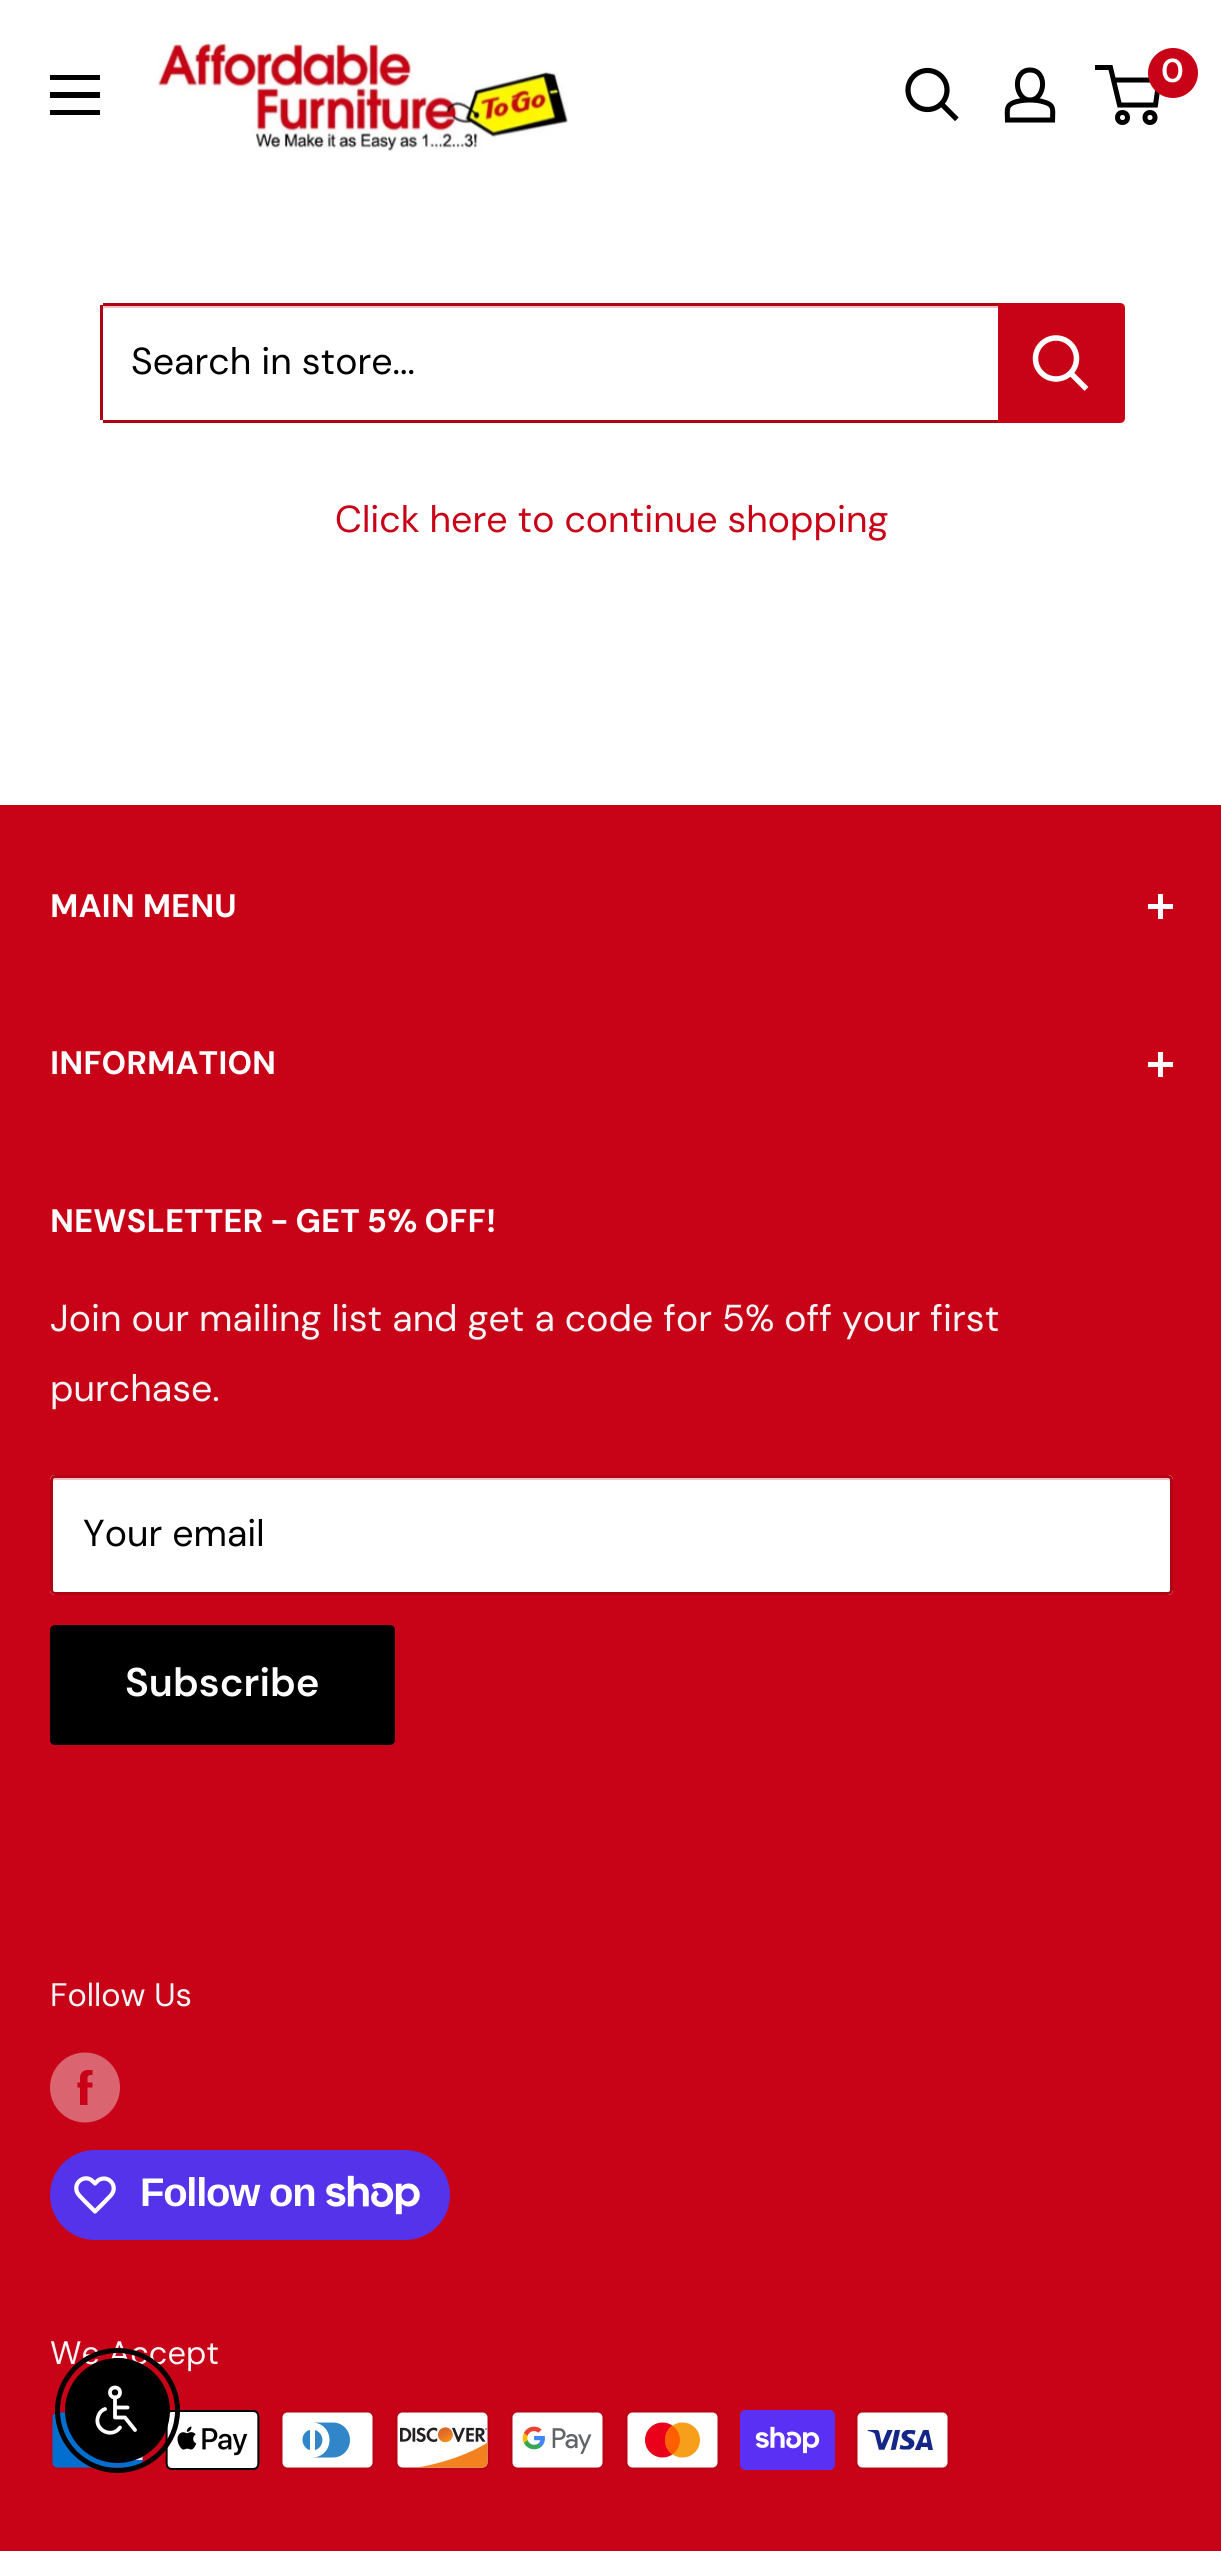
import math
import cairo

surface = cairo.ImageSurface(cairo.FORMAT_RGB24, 1221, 2551)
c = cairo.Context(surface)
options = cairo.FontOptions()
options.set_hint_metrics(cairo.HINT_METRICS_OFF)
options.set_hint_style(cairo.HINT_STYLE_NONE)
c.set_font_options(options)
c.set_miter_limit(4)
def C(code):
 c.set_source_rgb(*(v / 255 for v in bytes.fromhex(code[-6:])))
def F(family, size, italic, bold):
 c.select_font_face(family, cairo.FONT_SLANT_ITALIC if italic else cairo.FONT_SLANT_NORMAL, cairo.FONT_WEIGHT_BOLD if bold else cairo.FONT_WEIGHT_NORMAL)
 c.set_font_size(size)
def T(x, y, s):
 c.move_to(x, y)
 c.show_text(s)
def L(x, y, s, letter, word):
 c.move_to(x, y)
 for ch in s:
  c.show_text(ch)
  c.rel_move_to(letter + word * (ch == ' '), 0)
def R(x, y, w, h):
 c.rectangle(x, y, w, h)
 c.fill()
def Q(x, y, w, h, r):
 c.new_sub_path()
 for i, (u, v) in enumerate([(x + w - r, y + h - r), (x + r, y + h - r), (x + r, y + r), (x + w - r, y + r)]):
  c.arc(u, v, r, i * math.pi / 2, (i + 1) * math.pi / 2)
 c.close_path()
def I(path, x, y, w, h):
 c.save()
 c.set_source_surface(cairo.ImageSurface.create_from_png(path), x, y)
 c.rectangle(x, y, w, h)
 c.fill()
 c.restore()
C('ffffff')
c.paint()
I('1.png',157,41,412,110)
c.new_path()
c.move_to(955,117.5)
c.line_to(941.5,104)
C('000000')
c.set_line_width(5.2)
c.set_line_cap(cairo.LINE_CAP_SQUARE)
c.stroke()
c.arc(927.5,90,19.5,0,2 * math.pi)
c.set_line_cap(cairo.LINE_CAP_BUTT)
c.stroke()
c.new_path()
c.move_to(1030,100)
c.curve_to(1034.5,100,1039.5,100.5,1044,102)
c.curve_to(1055,105,1052.5,110.5,1052.5,120)
c.line_to(1007.5,120)
c.curve_to(1007.5,110,1005,104.5,1017,101.5)
c.curve_to(1021,100.5,1025.5,100,1030,100)
c.close_path()
c.move_to(1030,100)
c.curve_to(1014.5,100,1012,70,1030,70)
c.curve_to(1048,70,1045.5,100,1030,100)
c.close_path()
c.set_line_width(5)
c.stroke()
c.arc(1122.5,117.5,5,0,2 * math.pi)
c.stroke()
c.arc(1150,117.5,5,0,2 * math.pi)
c.stroke()
c.new_path()
c.move_to(1113.5,80)
c.line_to(1159,80)
c.line_to(1155.5,105)
c.line_to(1119.5,105)
c.line_to(1110.5,67.5)
c.line_to(1095,67.5)
c.stroke()
C('c90317')
c.arc(1173,73,25,0,2 * math.pi)
c.fill()
F('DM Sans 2 SemiBold',33,0,0)
C('ffffff')
T(1161,82,'0')
C('000000')
c.set_fill_rule(cairo.FILL_RULE_EVEN_ODD)
c.new_path()
c.move_to(50,110)
c.line_to(100,110)
c.line_to(100,115)
c.line_to(50,115)
c.close_path()
c.move_to(50,75)
c.line_to(100,75)
c.line_to(100,80)
c.line_to(50,80)
c.close_path()
c.move_to(50,92)
c.line_to(100,92)
c.line_to(100,98)
c.line_to(50,98)
c.close_path()
c.fill()
C('f2c0c5')
c.set_fill_rule(cairo.FILL_RULE_WINDING)
c.new_path()
c.move_to(105,308)
c.line_to(998,308)
c.line_to(998,305)
c.line_to(106,305)
c.curve_to(103,305,103,307,103,309)
c.close_path()
c.fill()
C('b00314')
R(103,303,895,3)
R(103,420,895,3)
R(100,305,3,115)
F('DM Sans',37.5,0,0)
C('000000')
T(131,374,'Search in store...')
C('c90317')
c.new_path()
c.move_to(998,303)
c.line_to(1120,303)
c.curve_to(1123,303,1125,305,1125,308)
c.line_to(1125,418)
c.curve_to(1125,421,1123,423,1120,423)
c.line_to(998,423)
c.close_path()
c.fill()
c.new_path()
c.move_to(1084.5,387)
c.line_to(1071,373.5)
C('ffffff')
c.set_line_width(5.5)
c.set_line_cap(cairo.LINE_CAP_SQUARE)
c.stroke()
c.arc(1056,358.5,20.5,0,2 * math.pi)
c.set_line_cap(cairo.LINE_CAP_BUTT)
c.stroke()
C('c90317')
T(335,532,'Click here to continue shopping')
R(0,805,1221,1746)
F('DM Sans',32.5,0,1)
C('ffffff')
T(50,917,'MAIN MENU')
R(1158,894,5,25)
R(1148,904,25,5)
T(50,1074,'INFORMATION')
R(1158,1052,5,25)
R(1148,1062,25,5)
L(50,1232,'NEWSLETTER - GET 5% OFF!',0,-1)
F('DM Sans',37.5,0,0)
C('f3f5f6')
T(50,1331,'Join our mailing list and get a code for 5% off your first')
T(50,1401,'purchase.')
C('ffffff')
Q(50,1475,1123,120,5)
c.fill()
C('f2c0c5')
c.new_path()
c.move_to(55,1480)
c.line_to(1168,1480)
c.curve_to(1169,1480,1170,1481,1170,1482)
c.curve_to(1170,1480,1170,1478,1168,1478)
c.line_to(56,1478)
c.curve_to(54,1478,53,1479,53,1481)
c.close_path()
c.fill()
Q(51.5,1476.5,1120,117,3.5)
C('b00314')
c.set_line_width(3)
c.stroke()
C('000000')
T(83,1546,'Your email')
Q(50,1625,345,120,5)
c.fill()
F('DM Sans SemiBold',40,0,0)
C('ffffff')
T(125,1696,'Subscribe')
F('DM Sans 2',32.5,0,0)
C('f3f5f6')
T(50,2006,'Follow Us')
I('2.png',50,2052,70,71)
C('5433eb')
Q(50,2150,400,90,45)
c.fill()
c.new_path()
c.move_to(93,2181.5)
c.line_to(95,2183.5)
c.curve_to(97,2181.5,98.5,2179.5,101,2179)
c.curve_to(109,2176.5,116,2184.5,113,2192)
c.curve_to(111.5,2195.5,108,2198,105.5,2201)
c.line_to(95,2211.5)
c.line_to(84.5,2201)
c.curve_to(82,2198,78.5,2195.5,77,2192)
c.curve_to(73,2182,85.5,2173.5,93,2181.5)
c.close_path()
C('ffffff')
c.set_line_width(4.2)
c.set_line_join(cairo.LINE_JOIN_ROUND)
c.stroke()
F('Liberation Sans',40,0,1)
L(140,2206,'Follow on',-1.25,0)
I('3.png',326,2175,94,40)
F('DM Sans 2',32.5,0,0)
C('f3f5f6')
T(50,2364,'We Accept')
I('4.png',50,2410,95,60)
I('5.png',165,2410,95,60)
I('6.png',280,2410,95,60)
I('7.png',395,2410,95,60)
I('8.png',510,2410,95,60)
I('9.png',625,2410,95,60)
I('10.png',740,2410,95,60)
I('11.png',855,2410,95,60)
c.arc(117.5,2410.5,60,0,2 * math.pi)
C('000000')
c.set_line_width(5)
c.set_line_join(cairo.LINE_JOIN_MITER)
c.stroke()
c.arc(117.5,2410.5,51,0,2 * math.pi)
c.fill_preserve()
c.set_line_width(3)
c.stroke()
c.arc(115,2392.5,5,0,2 * math.pi)
C('ffffff')
c.set_line_width(3.8)
c.stroke()
c.new_path()
c.move_to(115,2397.5)
c.line_to(115,2417.5)
c.line_to(125,2417.5)
c.line_to(135,2430)
c.move_to(115,2407.5)
c.line_to(127.5,2407.5)
c.move_to(105,2409)
c.curve_to(102,2410,99.5,2412.5,98.5,2415.5)
c.curve_to(92.5,2429,111.5,2439.5,120,2427.5)
c.set_line_cap(cairo.LINE_CAP_ROUND)
c.set_line_join(cairo.LINE_JOIN_ROUND)
c.stroke()
surface.write_to_png('o.png')
